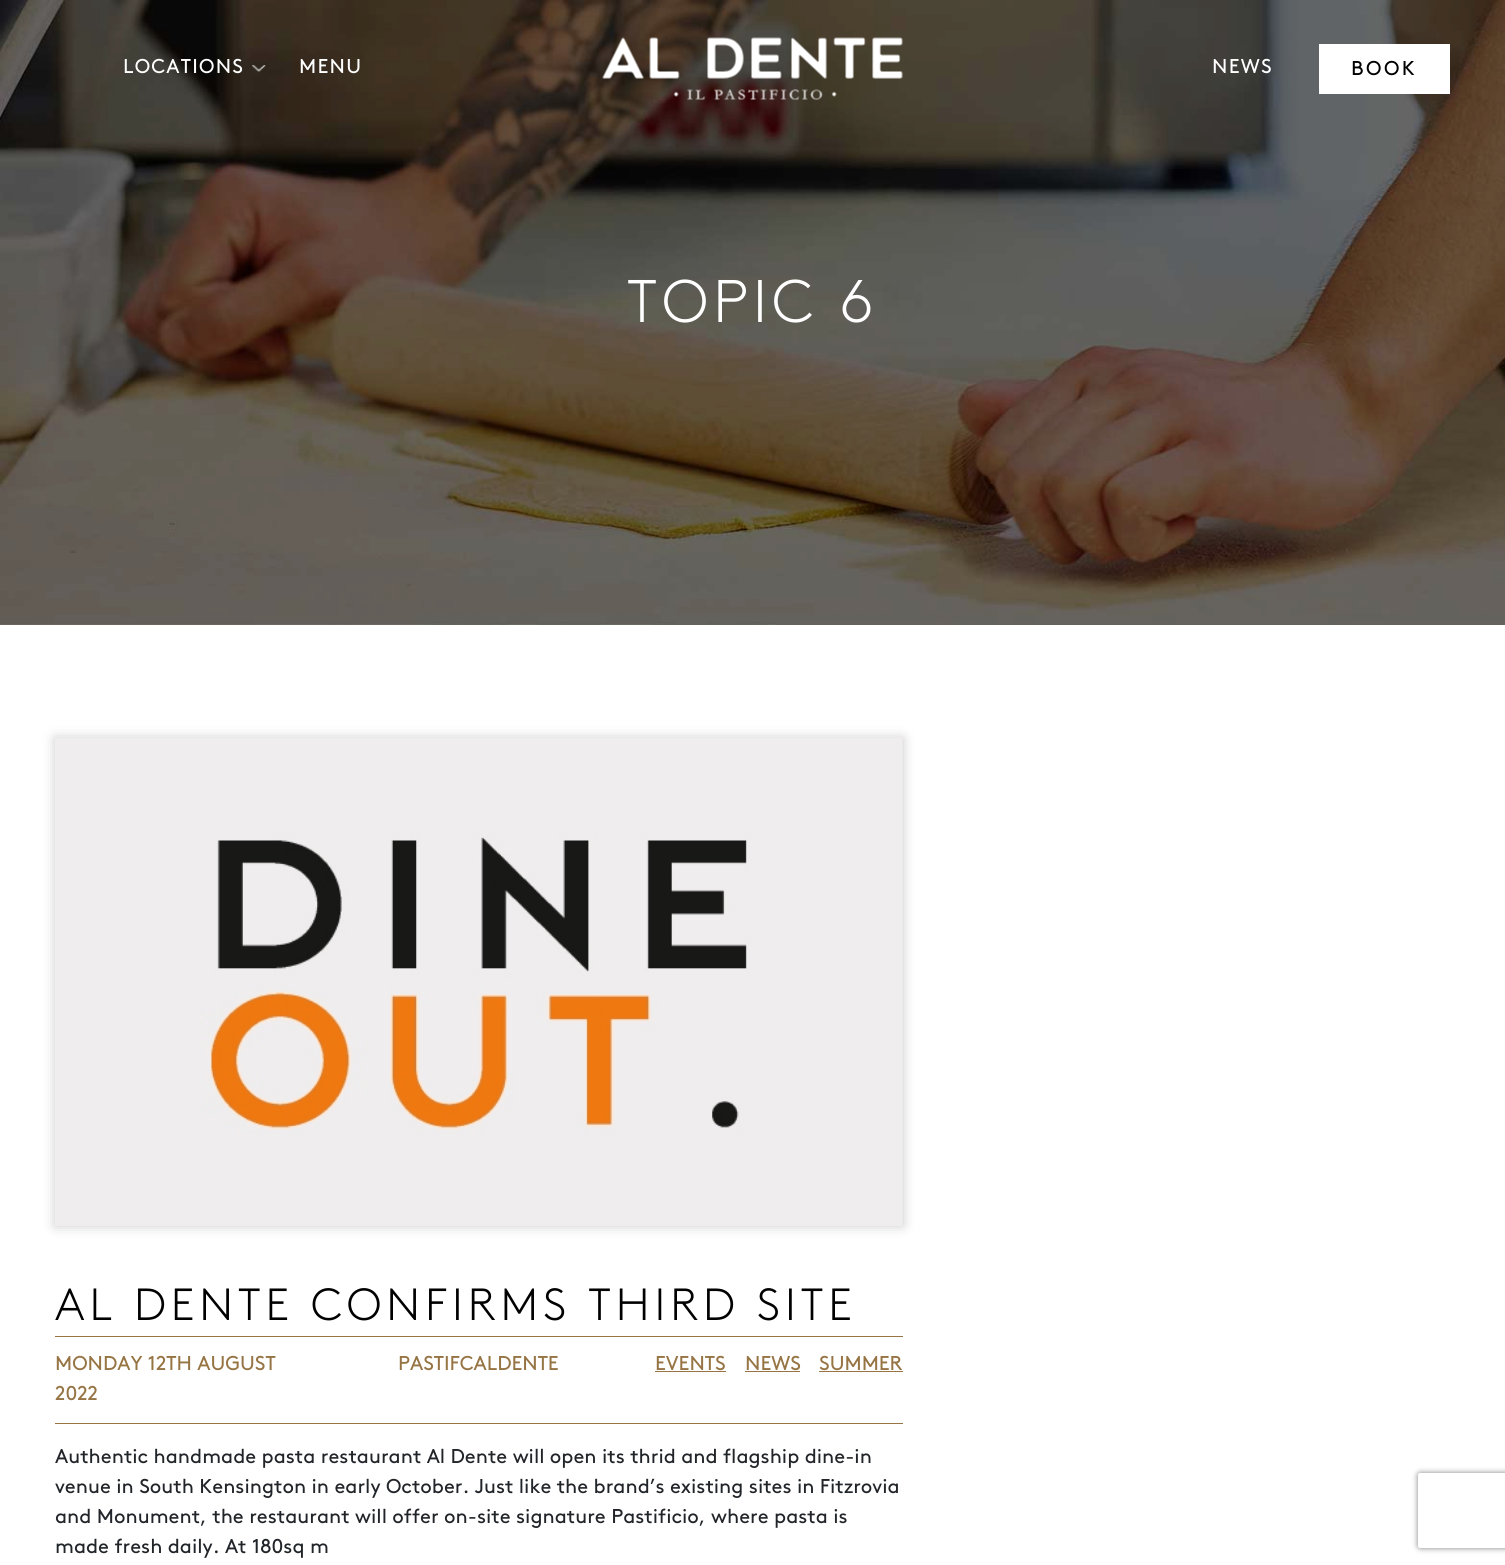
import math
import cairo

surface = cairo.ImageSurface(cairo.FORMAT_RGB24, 1505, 1565)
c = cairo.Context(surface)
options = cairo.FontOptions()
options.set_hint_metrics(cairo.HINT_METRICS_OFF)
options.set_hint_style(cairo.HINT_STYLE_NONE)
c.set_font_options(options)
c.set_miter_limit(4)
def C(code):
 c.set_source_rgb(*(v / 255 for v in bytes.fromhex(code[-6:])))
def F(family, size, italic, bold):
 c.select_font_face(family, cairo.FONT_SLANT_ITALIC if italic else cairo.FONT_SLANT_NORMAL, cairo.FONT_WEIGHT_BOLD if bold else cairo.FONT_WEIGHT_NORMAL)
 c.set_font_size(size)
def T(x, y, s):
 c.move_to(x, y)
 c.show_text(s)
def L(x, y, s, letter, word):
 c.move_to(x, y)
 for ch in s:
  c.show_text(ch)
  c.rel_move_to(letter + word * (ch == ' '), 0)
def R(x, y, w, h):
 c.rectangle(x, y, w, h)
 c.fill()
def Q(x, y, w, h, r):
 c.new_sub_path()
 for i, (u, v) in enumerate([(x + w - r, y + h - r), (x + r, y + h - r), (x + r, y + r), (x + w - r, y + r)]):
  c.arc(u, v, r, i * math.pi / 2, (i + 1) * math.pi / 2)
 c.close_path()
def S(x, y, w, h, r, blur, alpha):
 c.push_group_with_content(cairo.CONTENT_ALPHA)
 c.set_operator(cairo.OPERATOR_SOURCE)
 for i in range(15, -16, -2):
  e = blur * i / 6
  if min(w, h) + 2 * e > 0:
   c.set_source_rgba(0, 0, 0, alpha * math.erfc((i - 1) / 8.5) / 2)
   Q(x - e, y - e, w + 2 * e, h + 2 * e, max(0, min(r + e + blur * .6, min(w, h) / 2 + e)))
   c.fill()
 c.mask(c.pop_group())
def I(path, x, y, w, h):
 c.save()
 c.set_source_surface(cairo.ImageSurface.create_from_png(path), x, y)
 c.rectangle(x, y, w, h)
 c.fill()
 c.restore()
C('ffffff')
c.paint()
I('3.png',0,0,1505,625)
I('1.png',252,65,14,7)
F('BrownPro',20,0,0)
C('ffffff')
L(123,73,'LOCATIONS',1.25,0)
L(299,73,'MENU',1.25,0)
I('2.png',602,37,301,63)
L(1212,73,'NEWS',1.25,0)
R(1319,44,131,50)
C('000000')
L(1351,75,'BOOK',2.5,0)
F('BrownPro Light',60,0,0)
C('ffffff')
L(627,322,'TOPIC 6',5,0)
C('cccccc')
S(55,738,848,488,0,6,1)
I('4.png',55,737,848,489)
F('BrownPro Light',45,0,0)
C('000000')
L(55,1320,'AL DENTE CONFIRMS THIRD SITE',5,0)
C('967444')
R(55,1336,848,1)
R(55,1423,848,1)
F('BrownPro',20,0,0)
T(55,1370,'MONDAY 12TH AUGUST')
T(55,1400,'2022')
T(398,1370,'PASTIFCALDENTE')
T(655,1370,'EVENTS')
R(655,1371,71,1)
T(745,1370,'NEWS')
R(745,1371,55,1)
T(819,1370,'SUMMER')
R(819,1371,84,1)
C('212529')
T(55,1463,'Authentic handmade pasta restaurant Al Dente will open its thrid and flagship dine-in')
T(55,1493,'venue in South Kensington in early October. Just like the brand’s existing sites in Fitzrovia')
T(55,1523,'and Monument, the restaurant will offer on-site signature Pastificio, where pasta is')
T(55,1553,'made fresh daily. At 180sq m')
c.save()
c.set_fill_rule(cairo.FILL_RULE_EVEN_ODD)
c.new_path()
c.move_to(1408,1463)
c.line_to(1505,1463)
c.line_to(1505,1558)
c.line_to(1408,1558)
c.close_path()
c.move_to(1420.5,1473)
c.line_to(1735.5,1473)
c.curve_to(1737,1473,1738,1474,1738,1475.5)
c.line_to(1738,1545.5)
c.curve_to(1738,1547,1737,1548,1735.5,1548)
c.line_to(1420.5,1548)
c.curve_to(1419,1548,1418,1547,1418,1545.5)
c.line_to(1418,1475.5)
c.curve_to(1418,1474,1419,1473,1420.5,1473)
c.close_path()
c.clip()
C('808080')
S(1418,1473,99,75,2.5,3,1)
c.restore()
surface.write_to_png('o.png')
